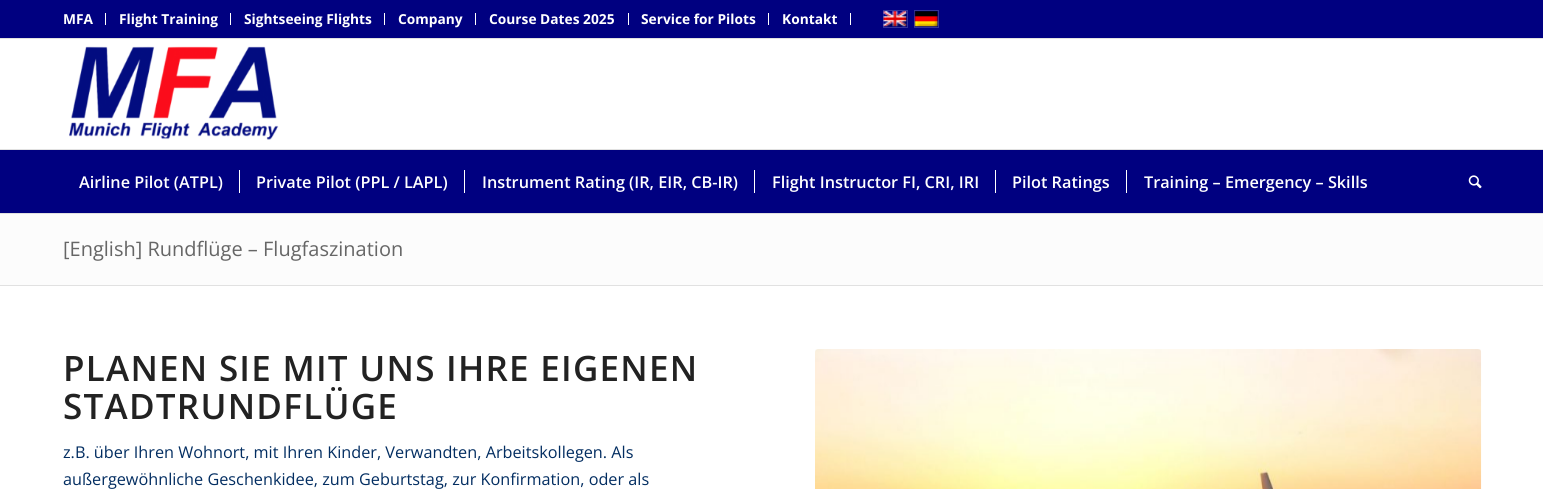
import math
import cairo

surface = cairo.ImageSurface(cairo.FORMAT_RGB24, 1543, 489)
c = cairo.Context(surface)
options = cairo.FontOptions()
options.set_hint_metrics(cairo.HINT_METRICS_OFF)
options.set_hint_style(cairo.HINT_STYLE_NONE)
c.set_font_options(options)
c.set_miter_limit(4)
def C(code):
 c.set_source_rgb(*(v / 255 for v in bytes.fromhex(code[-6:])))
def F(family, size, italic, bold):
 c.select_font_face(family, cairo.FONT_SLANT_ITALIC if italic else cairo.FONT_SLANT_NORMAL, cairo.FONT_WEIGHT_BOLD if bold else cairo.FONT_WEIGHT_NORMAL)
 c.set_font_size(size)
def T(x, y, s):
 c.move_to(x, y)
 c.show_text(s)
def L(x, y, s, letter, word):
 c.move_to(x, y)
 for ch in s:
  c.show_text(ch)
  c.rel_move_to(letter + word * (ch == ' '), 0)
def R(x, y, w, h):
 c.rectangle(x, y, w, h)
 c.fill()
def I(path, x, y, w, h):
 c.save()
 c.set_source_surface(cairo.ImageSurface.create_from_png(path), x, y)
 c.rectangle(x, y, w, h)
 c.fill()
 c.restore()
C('ffffff')
c.paint()
C('000080')
R(0,0,1543,38)
C('e1e1e1')
R(0,38,1543,1)
C('ffffff')
R(105,13,1,12)
F('Open Sans',13.75,0,1)
T(63,24,'MFA')
R(230,13,1,12)
T(119,24,'Flight Training')
R(384,13,1,12)
T(244,24,'Sightseeing Flights')
R(475,13,1,12)
T(398,24,'Company')
R(628,13,1,12)
T(489,24,'Course Dates 2025')
R(768,13,1,12)
T(641,24,'Service for Pilots')
R(850,13,1,12)
T(782,24,'Kontakt')
c.rectangle(883.5,10.5,24,17)
C('333399')
c.set_line_width(1)
c.stroke()
I('1.png',883,11,24,16)
c.rectangle(914.5,10.5,24,17)
c.stroke()
I('2.png',914,11,25,16)
C('e1e1e1')
R(0,213,1543,1)
I('3.png',69,46,210,94)
C('000080')
R(0,150,1543,63)
C('e1e1e1')
R(0,149,1543,1)
F('Open Sans SemiBold',16.25,0,0)
C('ffffff')
T(79,188,'Airline Pilot (ATPL)')
T(256,188,'Private Pilot (PPL / LAPL)')
R(239,170,1,23)
T(482,188,'Instrument Rating (IR, EIR, CB-IR)')
R(464,170,1,23)
T(772,188,'Flight Instructor FI, CRI, IRI')
R(754,170,1,23)
T(1012,188,'Pilot Ratings')
R(995,170,1,23)
T(1144,188,'Training – Emergency – Skills')
R(1126,170,1,23)
I('4.png',1468,175,14,14)
C('fcfcfc')
R(0,214,1543,71)
F('Open Sans',20,0,0)
C('666666')
T(63,256,'[English] Rundflüge – Flugfaszination')
C('e1e1e1')
R(0,285,1543,1)
F('Open Sans SemiBold',35,0,0)
C('222222')
L(63,381,'PLANEN SIE MIT UNS IHRE EIGENEN',1.25,0)
L(63,419,'STADTRUNDFLÜGE',1.25,0)
F('Open Sans',16.25,0,0)
C('022d61')
T(63,458,'z.B. über Ihren Wohnort, mit Ihren Kinder, Verwandten, Arbeitskollegen. Als')
T(63,485,'außergewöhnliche Geschenkidee, zum Geburtstag, zur Konfirmation, oder als')
I('5.png',815,349,667,140)
surface.write_to_png('o.png')
